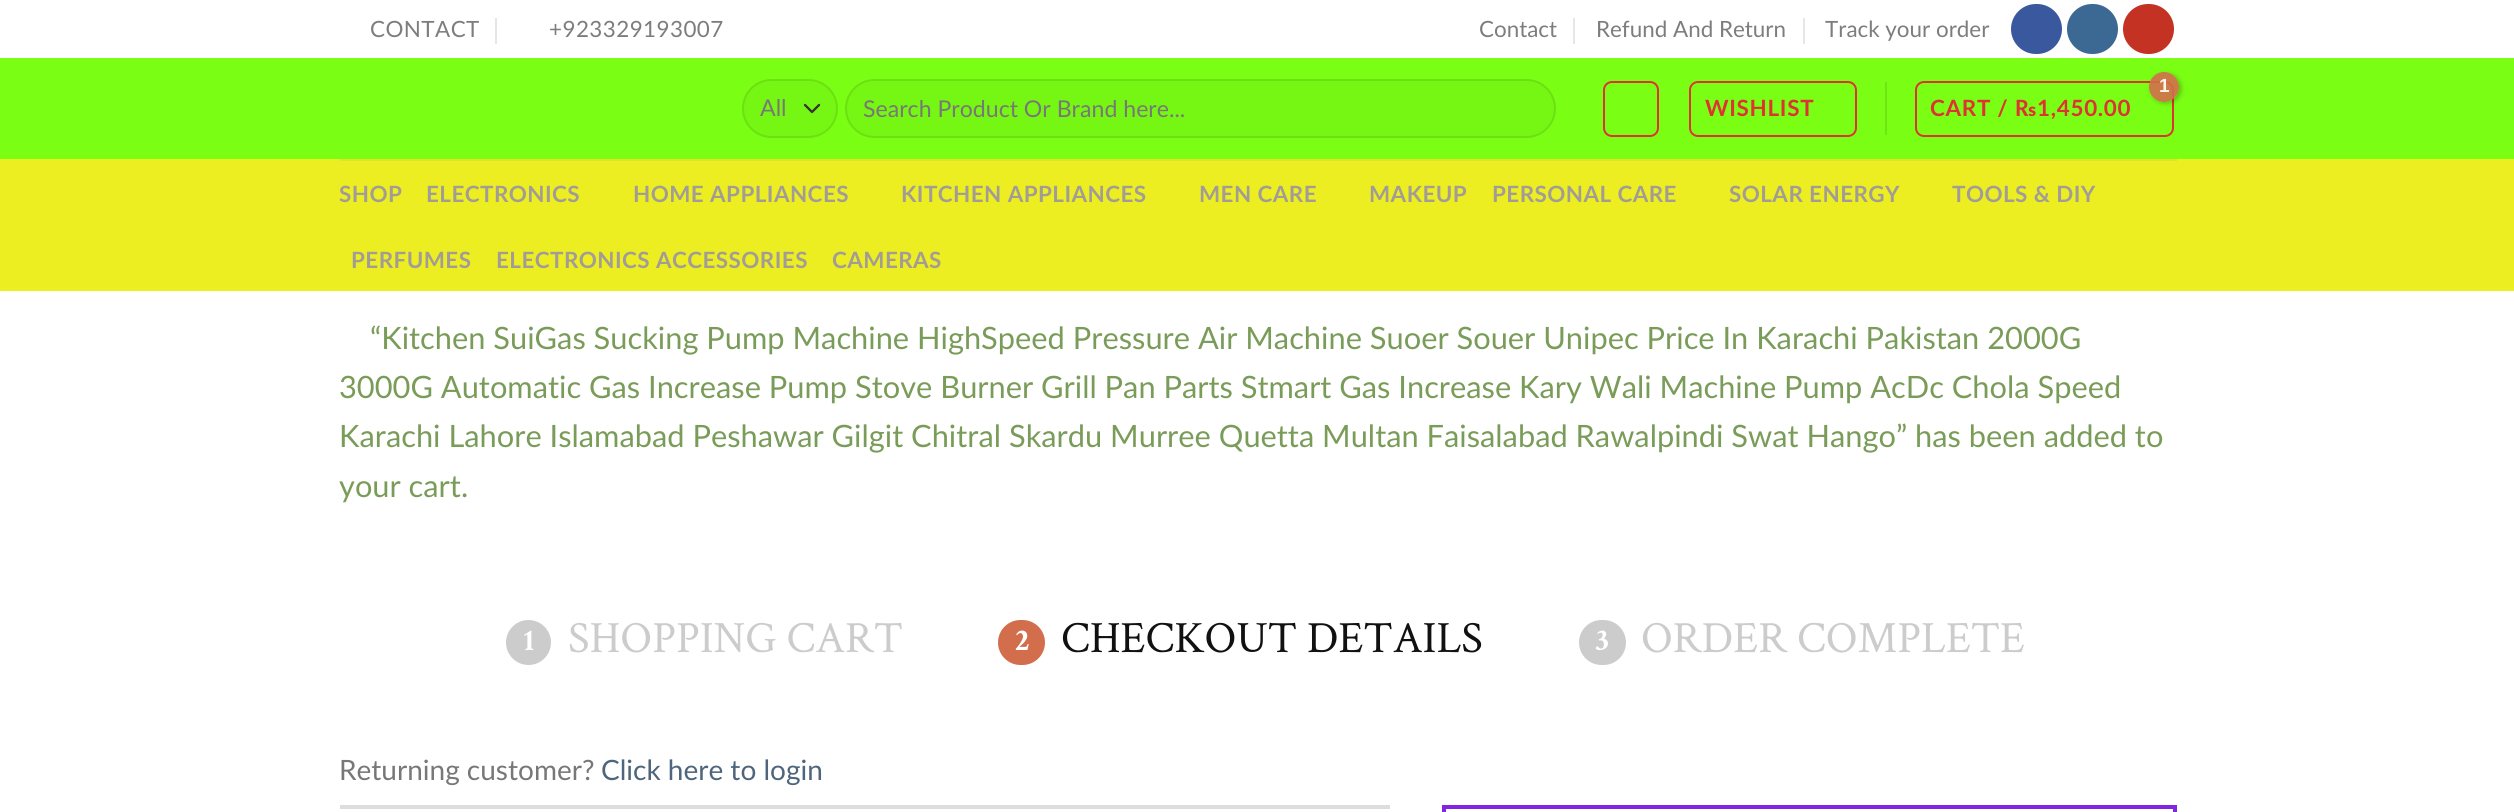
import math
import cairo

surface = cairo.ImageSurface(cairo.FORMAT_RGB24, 2514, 812)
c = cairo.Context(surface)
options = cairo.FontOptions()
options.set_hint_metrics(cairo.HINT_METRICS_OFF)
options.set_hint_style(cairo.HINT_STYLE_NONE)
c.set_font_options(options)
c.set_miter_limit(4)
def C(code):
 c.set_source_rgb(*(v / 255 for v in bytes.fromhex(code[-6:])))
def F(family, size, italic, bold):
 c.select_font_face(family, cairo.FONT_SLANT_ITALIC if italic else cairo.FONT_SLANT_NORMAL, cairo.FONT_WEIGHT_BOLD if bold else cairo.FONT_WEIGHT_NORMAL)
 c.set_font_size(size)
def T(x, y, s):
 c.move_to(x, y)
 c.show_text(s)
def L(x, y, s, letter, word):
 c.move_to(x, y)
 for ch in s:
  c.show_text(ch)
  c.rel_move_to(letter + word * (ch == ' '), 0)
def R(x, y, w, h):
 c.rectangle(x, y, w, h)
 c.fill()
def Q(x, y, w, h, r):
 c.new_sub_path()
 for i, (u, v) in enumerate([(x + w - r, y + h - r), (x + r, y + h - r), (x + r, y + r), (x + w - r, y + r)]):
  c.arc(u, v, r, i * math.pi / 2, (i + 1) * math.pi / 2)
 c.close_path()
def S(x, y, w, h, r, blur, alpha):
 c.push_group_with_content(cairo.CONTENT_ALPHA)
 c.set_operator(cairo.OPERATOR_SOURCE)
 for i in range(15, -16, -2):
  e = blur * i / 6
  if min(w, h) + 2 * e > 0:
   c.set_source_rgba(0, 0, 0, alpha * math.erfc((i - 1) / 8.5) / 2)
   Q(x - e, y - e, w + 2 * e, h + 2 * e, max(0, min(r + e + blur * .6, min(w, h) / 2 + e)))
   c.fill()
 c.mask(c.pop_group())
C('ffffff')
c.paint()
F('Lato',22.4,0,0)
C('7d7d7d')
L(370,37,'CONTACT',.45,0)
C('e6e6e6')
R(495,18,2,26)
C('7d7d7d')
L(549,37,'+923329193007',.45,0)
T(1479,37,'Contact')
C('e6e6e6')
R(1573,18,2,26)
C('7d7d7d')
T(1596,37,'Refund And Return')
C('e6e6e6')
R(1803,18,2,26)
C('7d7d7d')
T(1825,37,'Track your order')
C('3a589d')
Q(2012,5,49,48,24)
c.fill_preserve()
c.stroke()
C('3b6994')
Q(2068,5,49,48,24)
c.fill_preserve()
c.stroke()
C('c33223')
Q(2124,5,49,48,24)
c.fill_preserve()
c.stroke()
C('7aff14')
R(0,58,2514,101)
C('76f713')
Q(742,79,96,59,29.5)
c.fill()
c.new_path()
c.move_to(805,105)
c.line_to(812,112)
c.line_to(819,105)
C('333333')
c.set_line_width(2.3)
c.set_line_cap(cairo.LINE_CAP_ROUND)
c.set_line_join(cairo.LINE_JOIN_ROUND)
c.stroke()
Q(743,80,94,57,28.5)
c.set_source_rgba(0,0,0,0.09)
c.set_line_width(2)
c.set_line_cap(cairo.LINE_CAP_BUTT)
c.set_line_join(cairo.LINE_JOIN_MITER)
c.stroke()
F('Lato',23.1,0,0)
C('777777')
T(760,116,'All')
C('76f713')
Q(845,79,711,59,29.5)
c.fill()
Q(846,80,709,57,28.5)
c.set_source_rgba(0,0,0,0.09)
c.stroke()
C('777777')
T(863,117,'Search Product Or Brand here...')
Q(1604,82,54,54,8)
C('dd3333')
c.stroke()
Q(1690,82,166,54,8)
c.stroke()
F('Lato',22.4,0,1)
L(1705,116,'WISHLIST',.7,0)
C('6ee612')
R(1885,82,2,53)
Q(1916,82,257,54,8)
C('dd3333')
c.stroke()
c.save()
c.set_fill_rule(cairo.FILL_RULE_EVEN_ODD)
c.new_path()
c.move_to(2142,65)
c.line_to(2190,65)
c.line_to(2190,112)
c.line_to(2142,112)
c.close_path()
c.move_to(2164,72)
c.curve_to(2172.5,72,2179,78.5,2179,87)
c.curve_to(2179,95.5,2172.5,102,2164,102)
c.curve_to(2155.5,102,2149,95.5,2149,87)
c.curve_to(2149,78.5,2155.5,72,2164,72)
c.close_path()
c.clip()
C('000000')
S(2151,74,30,29,14.5,2.5,.27)
c.restore()
c.set_source_rgba(0.824,0.431,0.294,0.9)
c.arc(2164,87,15,0,2 * math.pi)
c.fill()
F('Liberation Sans',19,0,1)
C('faf2ed')
L(2159,92,'1',-1,0)
F('Lato',22.4,0,1)
C('dd3333')
L(1930,116,'CART / ₨1,450.00',.7,0)
C('edee22')
R(0,159,2514,132)
C('e1e22b')
R(340,159,1837,2)
C('a19c95')
L(339,202,'SHOP',.45,0)
L(426,202,'ELECTRONICS',.45,0)
L(633,202,'HOME APPLIANCES',.45,0)
L(901,202,'KITCHEN APPLIANCES',.45,0)
L(1199,202,'MEN CARE',.45,0)
L(1369,202,'MAKEUP',.45,0)
L(1492,202,'PERSONAL CARE',.45,0)
L(1729,202,'SOLAR ENERGY',.45,0)
L(1952,202,'TOOLS & DIY',.45,0)
L(351,268,'PERFUMES',.45,0)
L(496,268,'ELECTRONICS ACCESSORIES',.45,0)
L(832,268,'CAMERAS',.45,0)
F('Lato',30.8,0,0)
C('7a9c59')
T(370,349,'“Kitchen SuiGas Sucking Pump Machine HighSpeed Pressure Air Machine Suoer Souer Unipec Price In Karachi Pakistan 2000G')
T(339,398,'3000G Automatic Gas Increase Pump Stove Burner Grill Pan Parts Stmart Gas Increase Kary Wali Machine Pump AcDc Chola Speed')
T(339,447,'Karachi Lahore Islamabad Peshawar Gilgit Chitral Skardu Murree Quetta Multan Faisalabad Rawalpindi Swat Hango” has been added to')
T(339,497,'your cart.')
C('cccccc')
c.new_path()
c.arc(528.5,642.5,22.5,0,2 * math.pi)
c.fill()
F('Crimson Text',31,0,1)
C('ffffff')
T(523,650,'1')
F('Crimson Text',44.75,0,0)
C('cccccc')
T(568,652,'SHOPPING CART')
C('d26e4b')
Q(998,620,47,45,22.5)
c.fill()
F('Crimson Text',31,0,1)
C('ffffff')
T(1015,650,'2')
F('Crimson Text',44.75,0,0)
C('111111')
T(1061,652,'CHECKOUT DETAILS')
C('cccccc')
Q(1579,620,47,45,22.5)
c.fill()
F('Crimson Text',31,0,1)
C('ffffff')
T(1595,650,'3')
F('Crimson Text',44.75,0,0)
C('cccccc')
T(1641,652,'ORDER COMPLETE')
F('Lato',28,0,0)
C('777777')
T(339,780,'Returning customer?')
C('4e657b')
T(601,780,'Click here to login')
C('dddddd')
R(340,805,1050,4)
c.rectangle(1444,807,731,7)
C('8224e3')
c.set_line_width(4)
c.stroke()
surface.write_to_png('o.png')
